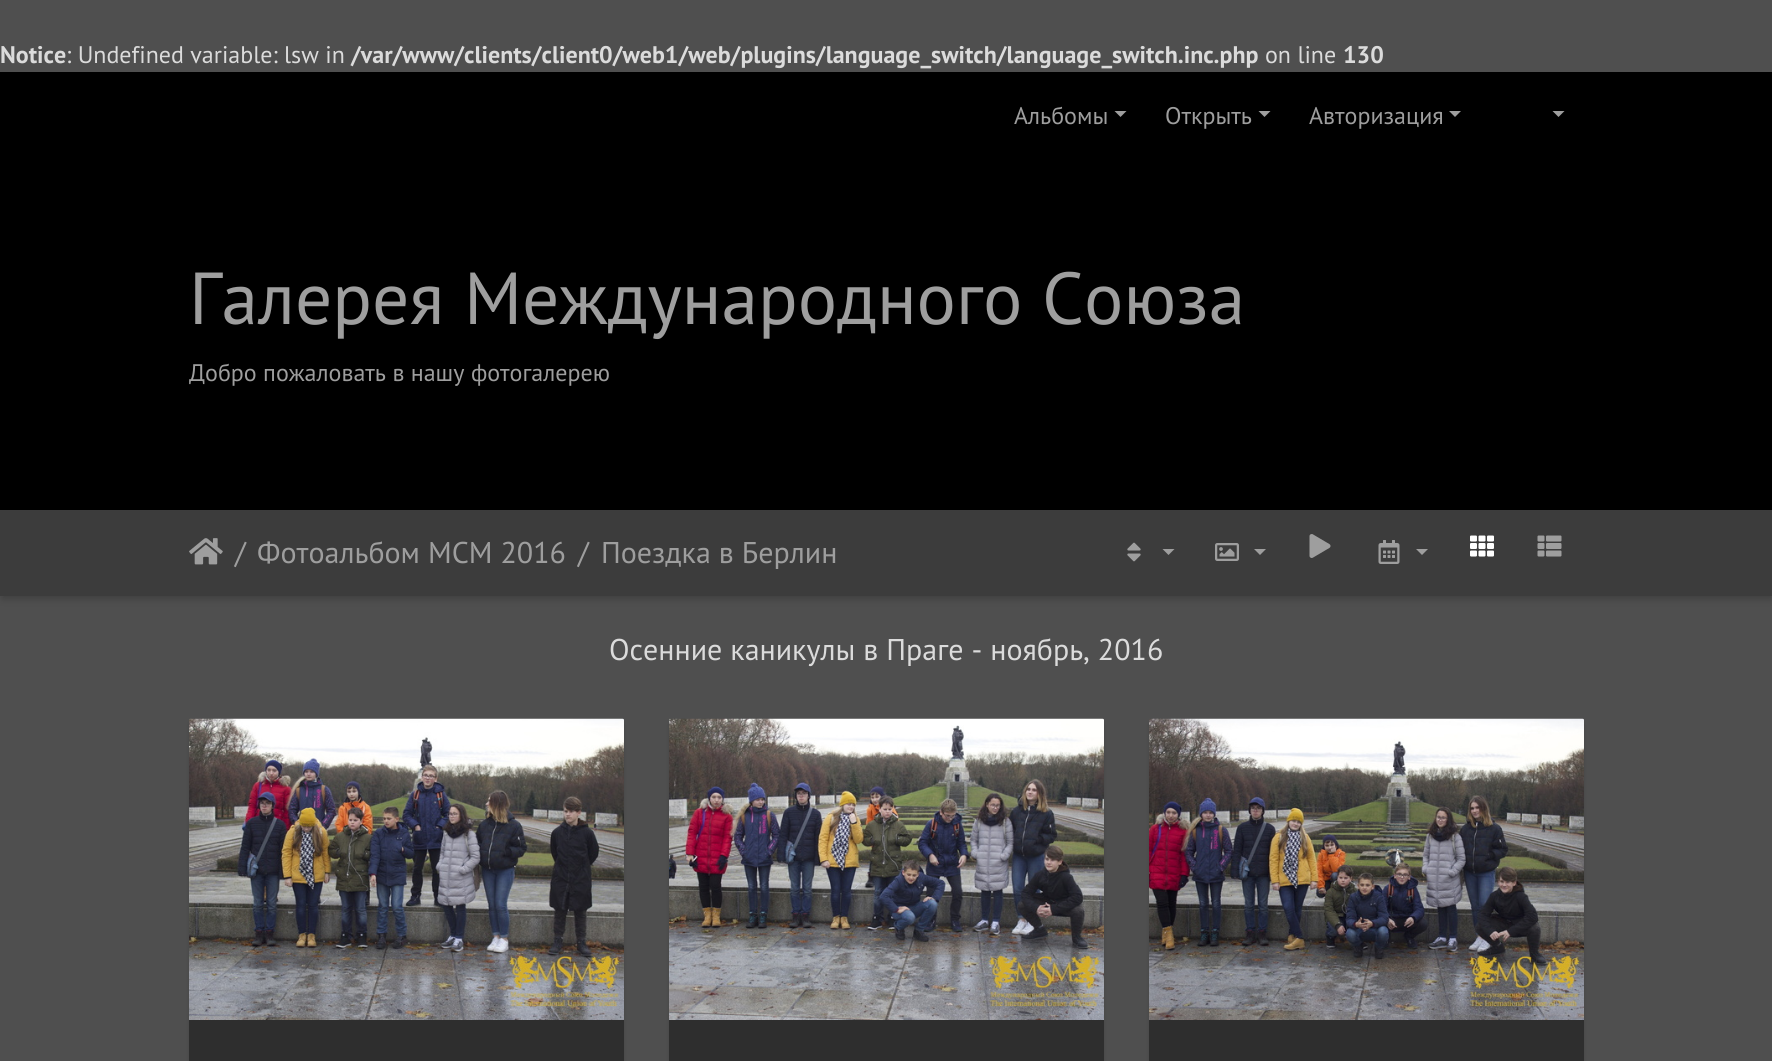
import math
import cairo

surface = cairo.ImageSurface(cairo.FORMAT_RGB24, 1772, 1061)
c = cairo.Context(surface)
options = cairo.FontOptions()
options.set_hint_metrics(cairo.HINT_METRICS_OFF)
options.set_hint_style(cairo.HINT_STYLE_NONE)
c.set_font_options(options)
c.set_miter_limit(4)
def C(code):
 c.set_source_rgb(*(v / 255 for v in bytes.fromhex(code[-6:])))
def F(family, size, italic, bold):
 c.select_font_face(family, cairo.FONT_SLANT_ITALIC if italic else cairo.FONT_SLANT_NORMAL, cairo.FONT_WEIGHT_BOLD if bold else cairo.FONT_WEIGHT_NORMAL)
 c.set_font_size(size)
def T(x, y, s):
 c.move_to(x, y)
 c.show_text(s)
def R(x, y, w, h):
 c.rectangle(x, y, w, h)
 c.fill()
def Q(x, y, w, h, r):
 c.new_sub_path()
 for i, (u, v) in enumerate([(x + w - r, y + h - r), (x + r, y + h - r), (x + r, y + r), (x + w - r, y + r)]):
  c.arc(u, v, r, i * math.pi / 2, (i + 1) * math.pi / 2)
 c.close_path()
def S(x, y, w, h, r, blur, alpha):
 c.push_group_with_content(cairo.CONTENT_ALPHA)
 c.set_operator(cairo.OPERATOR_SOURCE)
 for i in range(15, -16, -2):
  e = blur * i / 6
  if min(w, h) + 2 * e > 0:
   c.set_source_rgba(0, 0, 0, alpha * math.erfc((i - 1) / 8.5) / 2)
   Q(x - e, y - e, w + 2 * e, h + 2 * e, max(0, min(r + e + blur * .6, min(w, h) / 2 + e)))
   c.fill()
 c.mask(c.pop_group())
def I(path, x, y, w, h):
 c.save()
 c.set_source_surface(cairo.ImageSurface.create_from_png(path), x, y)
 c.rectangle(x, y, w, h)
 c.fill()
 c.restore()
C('4f4f4f')
c.paint()
F('PT Sans',24,0,1)
C('dbdbdb')
T(0,63,'Notice')
F('PT Sans',24,0,0)
T(66,63,': Undefined variable: lsw in')
F('PT Sans',24,0,1)
T(351,63,'/var/www/clients/client0/web1/web/plugins/language_switch/language_switch.inc.php')
F('PT Sans',24,0,0)
T(1265,63,'on line')
F('PT Sans',24,0,1)
T(1343,63,'130')
C('000000')
R(0,72,1772,438)
F('PT Sans',24,0,0)
C('9e9e9e')
T(1014,124,'Альбомы')
c.new_path()
c.move_to(1114.5,111)
c.line_to(1126.5,111)
c.line_to(1120.5,117)
c.close_path()
c.fill()
T(1165,124,'Открыть')
c.new_path()
c.move_to(1258.5,111)
c.line_to(1270.5,111)
c.line_to(1264.5,117)
c.close_path()
c.fill()
T(1309,124,'Авторизация')
c.new_path()
c.move_to(1449,111)
c.line_to(1461,111)
c.line_to(1455,117)
c.close_path()
c.fill()
c.new_path()
c.move_to(1552.5,111)
c.line_to(1564.5,111)
c.line_to(1558.5,117)
c.close_path()
c.fill()
F('PT Sans',73.5,0,0)
T(189,324,'Галерея Международного Союза')
F('PT Sans',24,0,0)
T(189,381,'Добро пожаловать в нашу фотогалерею')
C('000000')
S(2,516,1770,83,0,4,.2)
C('3c3c3c')
R(0,510,1772,86)
I('1.png',189,538,34,27)
F('PT Sans',30,0,0)
C('9e9e9e')
T(235,563,'/')
T(257,563,'Фотоальбом МСМ 2016')
T(578,563,'/')
T(601,563,'Поездка в Берлин')
I('2.png',1127,542,14,20)
c.new_path()
c.move_to(1162.5,549)
c.line_to(1174.5,549)
c.line_to(1168.5,555)
c.close_path()
c.fill()
I('3.png',1215,543,24,18)
c.new_path()
c.move_to(1254,549)
c.line_to(1266,549)
c.line_to(1260,555)
c.close_path()
c.fill()
I('4.png',1309,534,22,24)
I('5.png',1378,540,22,24)
c.new_path()
c.move_to(1416,549)
c.line_to(1428,549)
c.line_to(1422,555)
c.close_path()
c.fill()
I('6.png',1470,535,24,22)
I('7.png',1537,535,25,22)
C('dbdbdb')
T(609,660,'Осенние каникулы в Праге - ноябрь, 2016')
C('000000')
S(189,722,435,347,3,1.5,.14)
C('2e2e2e')
Q(189,719,435,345,3)
c.fill()
I('8.png',189,718,435,302)
C('000000')
S(669,722,435,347,3,1.5,.14)
C('2e2e2e')
Q(669,719,435,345,3)
c.fill()
I('9.png',669,718,435,302)
C('000000')
S(1149,722,435,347,3,1.5,.14)
C('2e2e2e')
Q(1149,719,435,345,3)
c.fill()
I('10.png',1149,718,435,302)
surface.write_to_png('o.png')
